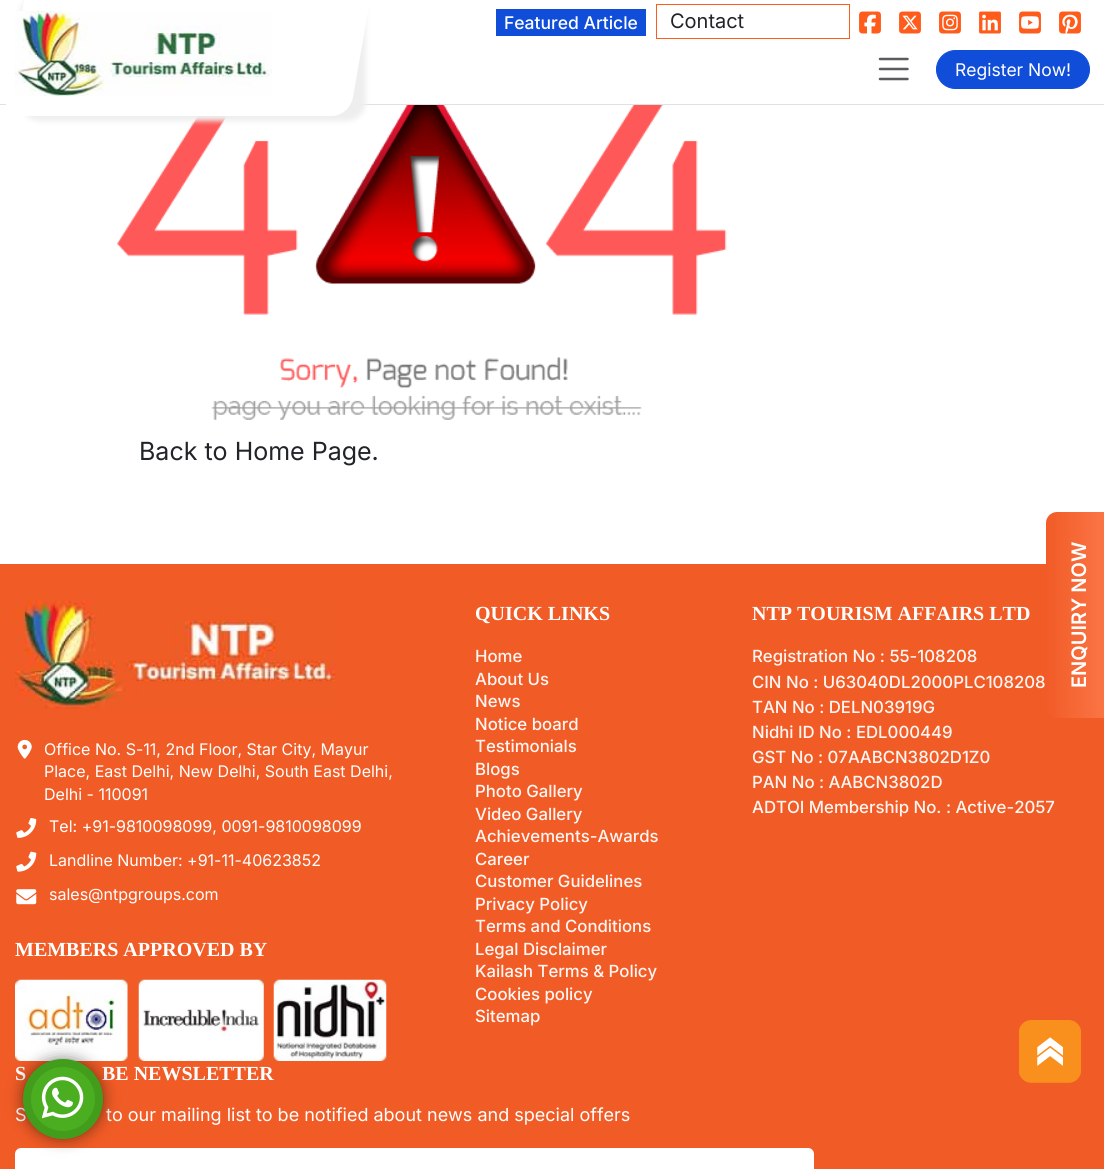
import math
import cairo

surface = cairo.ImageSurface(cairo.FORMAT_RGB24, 1104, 1169)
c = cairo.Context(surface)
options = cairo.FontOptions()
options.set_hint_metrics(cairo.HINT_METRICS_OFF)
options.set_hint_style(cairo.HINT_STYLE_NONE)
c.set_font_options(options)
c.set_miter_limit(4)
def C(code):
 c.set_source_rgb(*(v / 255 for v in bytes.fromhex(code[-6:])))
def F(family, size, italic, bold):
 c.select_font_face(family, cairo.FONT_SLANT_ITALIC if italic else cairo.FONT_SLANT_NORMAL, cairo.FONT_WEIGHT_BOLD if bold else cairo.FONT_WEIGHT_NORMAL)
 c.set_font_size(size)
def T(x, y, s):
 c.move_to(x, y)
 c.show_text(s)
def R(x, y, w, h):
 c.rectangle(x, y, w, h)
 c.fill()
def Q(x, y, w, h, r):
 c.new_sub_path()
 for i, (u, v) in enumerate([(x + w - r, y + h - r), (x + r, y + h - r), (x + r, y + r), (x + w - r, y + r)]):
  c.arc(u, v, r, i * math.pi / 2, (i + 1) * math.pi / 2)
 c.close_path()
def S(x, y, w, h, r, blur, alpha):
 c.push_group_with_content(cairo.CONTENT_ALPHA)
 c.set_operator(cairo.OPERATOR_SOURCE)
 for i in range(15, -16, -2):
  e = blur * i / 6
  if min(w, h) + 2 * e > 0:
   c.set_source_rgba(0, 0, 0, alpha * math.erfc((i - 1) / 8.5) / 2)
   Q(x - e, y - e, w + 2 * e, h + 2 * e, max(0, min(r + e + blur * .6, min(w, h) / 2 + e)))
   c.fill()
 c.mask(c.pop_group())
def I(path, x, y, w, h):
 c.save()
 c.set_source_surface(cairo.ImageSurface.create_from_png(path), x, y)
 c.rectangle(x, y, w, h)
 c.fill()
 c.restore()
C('ffffff')
c.paint()
C('e1e1e1')
R(0,104,1104,1)
I('8.png',117,105,610,315)
C('eeeeee')
S(20,-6,346,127,19,2.5,1)
C('ffffff')
c.new_path()
c.move_to(26,-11)
c.line_to(372,-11)
c.line_to(353,97)
c.curve_to(351,108,342,116,331,116)
c.line_to(4,116)
c.close_path()
c.fill()
I('1.png',15,11,257,85)
C('104ed9')
R(496,9,150,27)
F('Inter Medium',17.5,0,0)
C('ffffff')
T(504,29,'Featured Article')
c.rectangle(656.5,4.5,193,34)
C('ff5b1a')
c.set_line_width(1)
c.stroke()
F('Inter',20,0,0)
C('212529')
T(670,28,'Contact')
I('2.png',859,11,22,23)
I('3.png',899,11,22,23)
I('4.png',939,11,22,23)
I('5.png',979,11,22,23)
I('6.png',1019,11,22,23)
I('7.png',1059,11,22,23)
c.new_path()
c.move_to(880,59)
c.line_to(907.5,59)
c.move_to(880,69)
c.line_to(907.5,69)
c.move_to(880,79)
c.line_to(907.5,79)
C('595c5f')
c.set_line_width(2.5)
c.set_line_cap(cairo.LINE_CAP_ROUND)
c.stroke()
C('104ed9')
Q(936.5,50.5,153,38,19)
c.fill_preserve()
c.set_line_width(1)
c.set_line_cap(cairo.LINE_CAP_BUTT)
c.stroke()
F('Inter',17.5,0,0)
C('ffffff')
T(955,76,'Register Now!')
F('Inter',25,0,0)
C('212529')
T(139,460,'Back to Home Page.')
C('f15b25')
R(0,564,1104,605)
F('Liberation Serif',20,0,1)
C('ffffff')
T(475,620,'QUICK LINKS')
F('Inter Medium',16.75,0,0)
C('fff6f3')
T(475,662,'Home')
T(475,685,'About Us')
T(475,707,'News')
T(475,730,'Notice board')
T(475,752,'Testimonials')
T(475,775,'Blogs')
T(475,797,'Photo Gallery')
T(475,820,'Video Gallery')
T(475,842,'Achievements-Awards')
T(475,865,'Career')
T(475,887,'Customer Guidelines')
T(475,910,'Privacy Policy')
T(475,932,'Terms and Conditions')
T(475,955,'Legal Disclaimer')
T(475,977,'Kailash Terms & Policy')
T(475,1000,'Cookies policy')
T(475,1022,'Sitemap')
F('Liberation Serif',20,0,1)
C('ffffff')
T(752,620,'NTP TOURISM AFFAIRS LTD')
F('Inter Medium',16.75,0,0)
C('fff6f3')
T(752,662,'Registration No : 55-108208')
T(752,688,'CIN No : U63040DL2000PLC108208')
T(752,713,'TAN No : DELN03919G')
T(752,738,'Nidhi ID No : EDL000449')
T(752,763,'GST No : 07AABCN3802D1Z0')
T(752,788,'PAN No : AABCN3802D')
T(752,813,'ADTOI Membership No. : Active-2057')
I('9.png',15,601,321,108)
I('10.png',17,739,15,20)
F('Inter',16,0,0)
C('ffffff')
T(44,755,'Office No. S-11, 2nd Floor, Star City, Mayur')
T(44,777,'Place, East Delhi, New Delhi, South East Delhi,')
T(44,800,'Delhi - 110091')
I('11.png',16,818,21,20)
T(49,832,'Tel: +91-9810098099, 0091-9810098099')
I('12.png',16,851,21,21)
T(49,866,'Landline Number: +91-11-40623852')
I('13.png',16,889,21,16)
T(49,900,'sales@ntpgroups.com')
F('Liberation Serif',20,0,1)
T(15,956,'MEMBERS APPROVED BY')
I('14.png',15,979,113,82)
I('15.png',138,979,126,82)
I('16.png',273,979,114,82)
T(15,1080,'S')
T(102,1080,'BE NEWSLETTER')
F('Inter',18,0,0)
T(15,1121,'S')
T(106,1121,'to our mailing list to be notified about news and special offers')
Q(15,1148,799,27,6)
c.fill()
gradient = cairo.LinearGradient(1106,615,1046,615)
gradient.add_color_stop_rgba(0,0.984,0.463,0.271,1)
gradient.add_color_stop_rgba(1,0.945,0.357,0.153,1)
c.set_source(gradient)
c.new_path()
c.move_to(1046,707)
c.line_to(1046,523)
c.curve_to(1046,517,1051,512,1057,512)
c.line_to(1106,512)
c.line_to(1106,718)
c.line_to(1057,718)
c.curve_to(1051,718,1046,713,1046,707)
c.close_path()
c.fill()
F('Inter SemiBold',20,0,0)
C('ffffff')
c.save()
c.translate(1086,688)
c.rotate(-90 * math.pi / 180)
T(0,0,'ENQUIRY NOW')
c.restore()
C('050505')
S(23,1059,80,80,40,7.5,.5)
C('4aae20')
c.arc(63,1099,40,0,2 * math.pi)
c.fill()
c.arc(63,1099,36,0,2 * math.pi)
c.set_source_rgba(0,0,0,0.1)
c.set_line_width(8)
c.stroke()
I('17.png',41,1076,43,43)
I('18.png',1019,1020,62,63)
surface.write_to_png('o.png')
